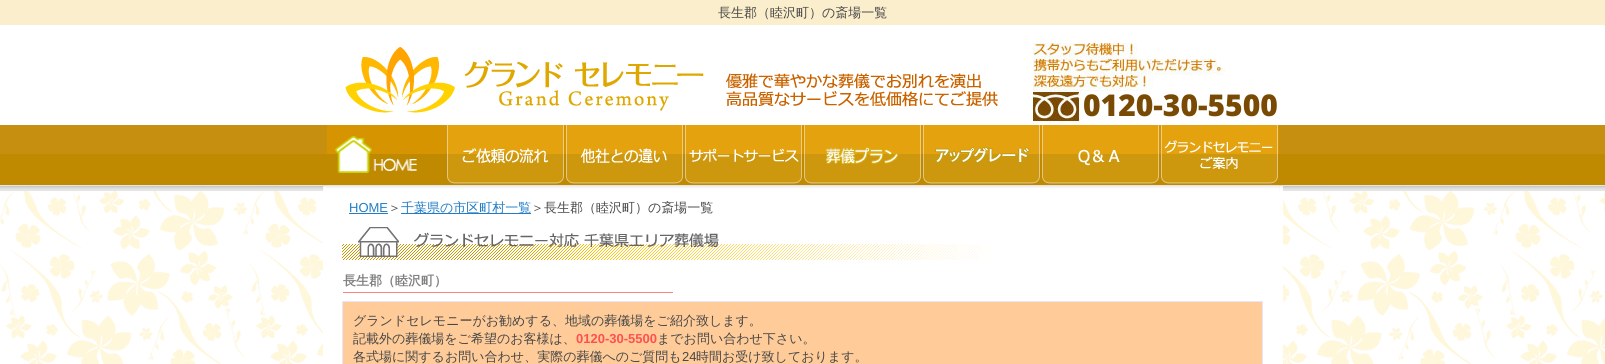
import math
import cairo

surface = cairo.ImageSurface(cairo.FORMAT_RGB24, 1605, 364)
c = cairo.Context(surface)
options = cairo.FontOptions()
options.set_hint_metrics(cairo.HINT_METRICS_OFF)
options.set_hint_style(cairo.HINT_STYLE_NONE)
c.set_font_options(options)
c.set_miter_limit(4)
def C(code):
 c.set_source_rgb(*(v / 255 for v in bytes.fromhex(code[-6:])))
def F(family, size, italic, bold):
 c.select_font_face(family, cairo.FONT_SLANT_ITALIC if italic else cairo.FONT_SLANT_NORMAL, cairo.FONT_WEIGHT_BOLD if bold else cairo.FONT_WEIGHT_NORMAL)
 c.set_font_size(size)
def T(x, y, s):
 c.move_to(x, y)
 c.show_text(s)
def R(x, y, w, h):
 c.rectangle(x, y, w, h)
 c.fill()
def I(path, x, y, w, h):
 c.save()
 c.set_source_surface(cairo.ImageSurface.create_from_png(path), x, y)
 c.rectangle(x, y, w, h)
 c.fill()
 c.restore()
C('ffffff')
c.paint()
I('1.png',0,191,1605,173)
C('fbeecc')
R(0,0,1605,25)
F('WenQuanYi Zen Hei Medium',13,0,0)
C('464646')
T(718,17,'長生郡（睦沢町）の斎場一覧')
I('2.png',345,46,653,67)
I('3.png',1033,43,192,80)
F('Open Sans ExtraBold',30,0,0)
C('794a04')
T(1083,116,'0120-30-5500')
I('4.png',0,125,1605,66)
I('5.png',323,185,4,6)
I('6.png',327,125,119,66)
I('7.png',446,125,119,66)
I('8.png',565,125,119,66)
I('9.png',684,125,119,66)
I('10.png',803,125,119,66)
I('11.png',922,125,119,66)
I('12.png',1041,125,119,66)
I('13.png',1160,125,119,66)
I('5.png',1279,185,4,6)
C('ffffff')
R(323,191,960,173)
F('Liberation Sans',13,0,0)
C('217dc6')
T(349,212,'HOME')
R(349,213,39,1)
F('WenQuanYi Zen Hei Medium',13,0,0)
C('464646')
T(388,212,'＞')
C('217dc6')
R(401,213,130,1)
T(401,212,'千葉県の市区町村一覧')
C('464646')
T(531,212,'＞長生郡（睦沢町）の斎場一覧')
I('14.png',342,227,652,33)
C('ff8080')
R(343,292,330,1)
F('WenQuanYi Zen Hei',13,0,1)
C('808080')
T(343,285,'長生郡（睦沢町）')
C('ffcc99')
c.rectangle(342.5,301.5,920,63)
c.fill_preserve()
C('e6e6ff')
c.set_line_width(1)
c.stroke()
F('WenQuanYi Zen Hei Medium',13,0,0)
C('464646')
T(353,325,'グランドセレモニーがお勧めする、地域の葬儀場をご紹介致します。')
T(353,343,'記載外の葬儀場をご希望のお客様は、')
F('Liberation Sans',13,0,1)
C('ff5050')
T(576,343,'0120-30-5500')
F('WenQuanYi Zen Hei Medium',13,0,0)
C('464646')
T(657,343,'までお問い合わせ下さい。')
T(353,361,'各式場に関するお問い合わせ、実際の葬儀へのご質問も')
F('Liberation Sans',13,0,0)
T(682,361,'24')
F('WenQuanYi Zen Hei Medium',13,0,0)
T(696,361,'時間お受け致しております。')
surface.write_to_png('o.png')
